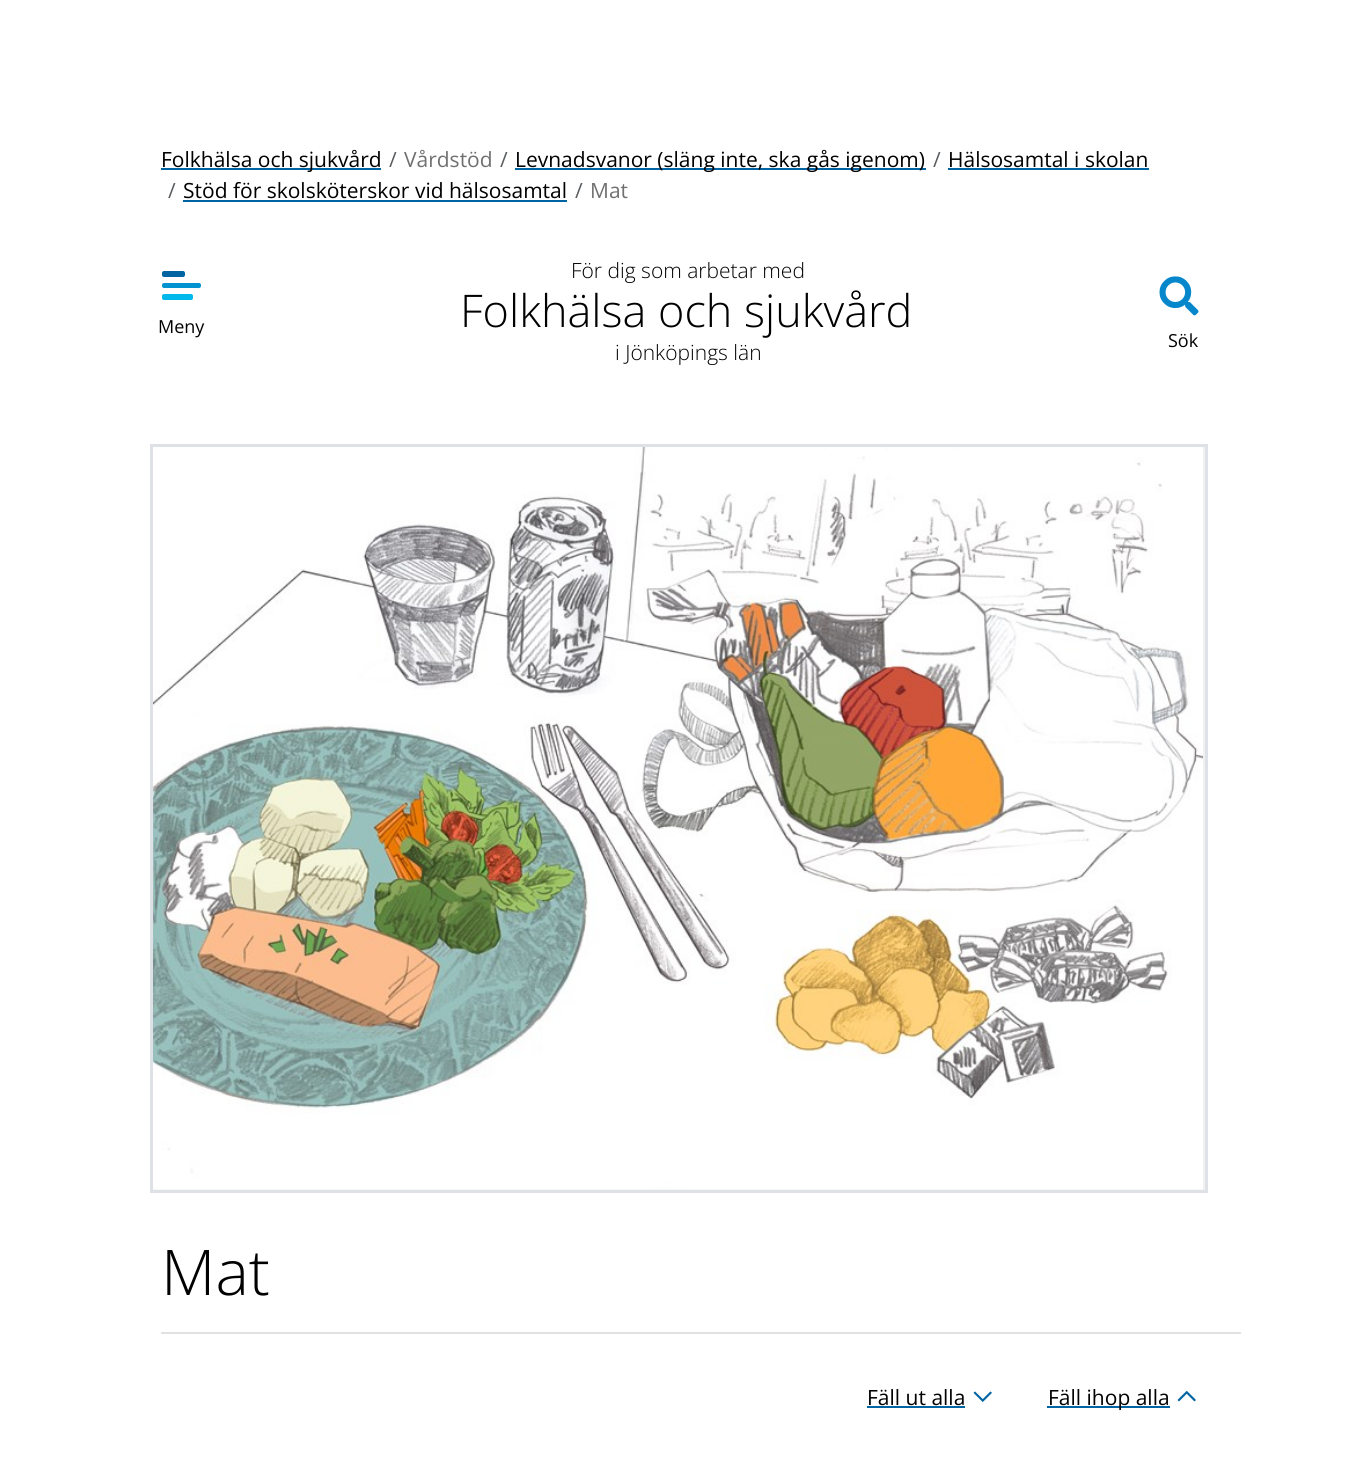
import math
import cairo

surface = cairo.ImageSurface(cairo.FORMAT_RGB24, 1356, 1460)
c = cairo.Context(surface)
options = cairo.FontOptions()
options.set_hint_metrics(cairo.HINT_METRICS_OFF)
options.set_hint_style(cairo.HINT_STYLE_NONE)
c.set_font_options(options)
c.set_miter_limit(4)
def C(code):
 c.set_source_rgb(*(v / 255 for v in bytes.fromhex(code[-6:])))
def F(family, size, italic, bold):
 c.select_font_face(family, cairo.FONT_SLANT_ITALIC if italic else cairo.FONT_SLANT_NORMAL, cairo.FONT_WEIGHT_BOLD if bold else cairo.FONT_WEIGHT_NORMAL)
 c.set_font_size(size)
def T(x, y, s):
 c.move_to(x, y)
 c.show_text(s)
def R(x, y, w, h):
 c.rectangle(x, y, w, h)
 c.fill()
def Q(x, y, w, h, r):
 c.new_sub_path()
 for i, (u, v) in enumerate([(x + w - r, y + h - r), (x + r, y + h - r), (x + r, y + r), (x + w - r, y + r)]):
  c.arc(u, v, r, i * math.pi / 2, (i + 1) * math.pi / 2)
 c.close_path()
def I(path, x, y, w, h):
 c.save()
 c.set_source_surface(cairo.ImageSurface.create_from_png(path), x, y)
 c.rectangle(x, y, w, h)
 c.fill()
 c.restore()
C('ffffff')
c.paint()
C('0063a2')
R(161,168,220,2)
F('Open Sans',21,0,0)
C('000000')
T(161,167,'Folkhälsa och sjukvård')
C('595c5f')
T(389,167,'/')
C('707070')
T(404,167,'Vårdstöd')
C('595c5f')
T(500,167,'/')
C('0063a2')
R(515,168,411,2)
C('000000')
T(515,167,'Levnadsvanor (släng inte, ska gås igenom)')
C('595c5f')
T(933,167,'/')
C('000000')
T(948,167,'Hälsosamtal i skolan')
C('0063a2')
R(948,168,201,2)
C('595c5f')
T(168,198,'/')
C('000000')
T(183,198,'Stöd för skolsköterskor vid hälsosamtal')
C('0063a2')
R(183,200,384,2)
C('595c5f')
T(575,198,'/')
C('707070')
T(590,198,'Mat')
C('0063a2')
Q(162,271,23,6,2)
c.fill()
C('0093d0')
Q(162,283,39,5,2)
c.fill()
C('00b8ec')
Q(162,294,31,6,2)
c.fill()
F('Open Sans',18,0,0)
C('000000')
T(158,333,'Meny')
F('Open Sans Light',21,0,0)
T(571,278,'För dig som arbetar med')
F('Open Sans Light',45,0,0)
T(460,327,'Folkhälsa och sjukvård')
F('Open Sans Light',21,0,0)
T(615,360,'i Jönköpings län')
I('1.png',1159,276,40,40)
F('Open Sans',18,0,0)
T(1168,347,'Sök')
C('f1f1f1')
c.rectangle(151.5,445.5,1055,746)
c.fill_preserve()
C('dee2e6')
c.set_line_width(3)
c.stroke()
I('2.png',153,447,1050,743)
C('e1e1e1')
R(161,1332,1080,2)
F('Open Sans Light',63,0,0)
C('000000')
T(161,1295,'Mat')
F('Open Sans',21,0,0)
T(867,1405,'Fäll ut alla')
C('0063a2')
R(867,1406,98,2)
I('3.png',973,1391,19,11)
R(1047,1406,123,2)
C('000000')
T(1048,1405,'Fäll ihop alla')
I('4.png',1177,1391,19,11)
surface.write_to_png('o.png')
